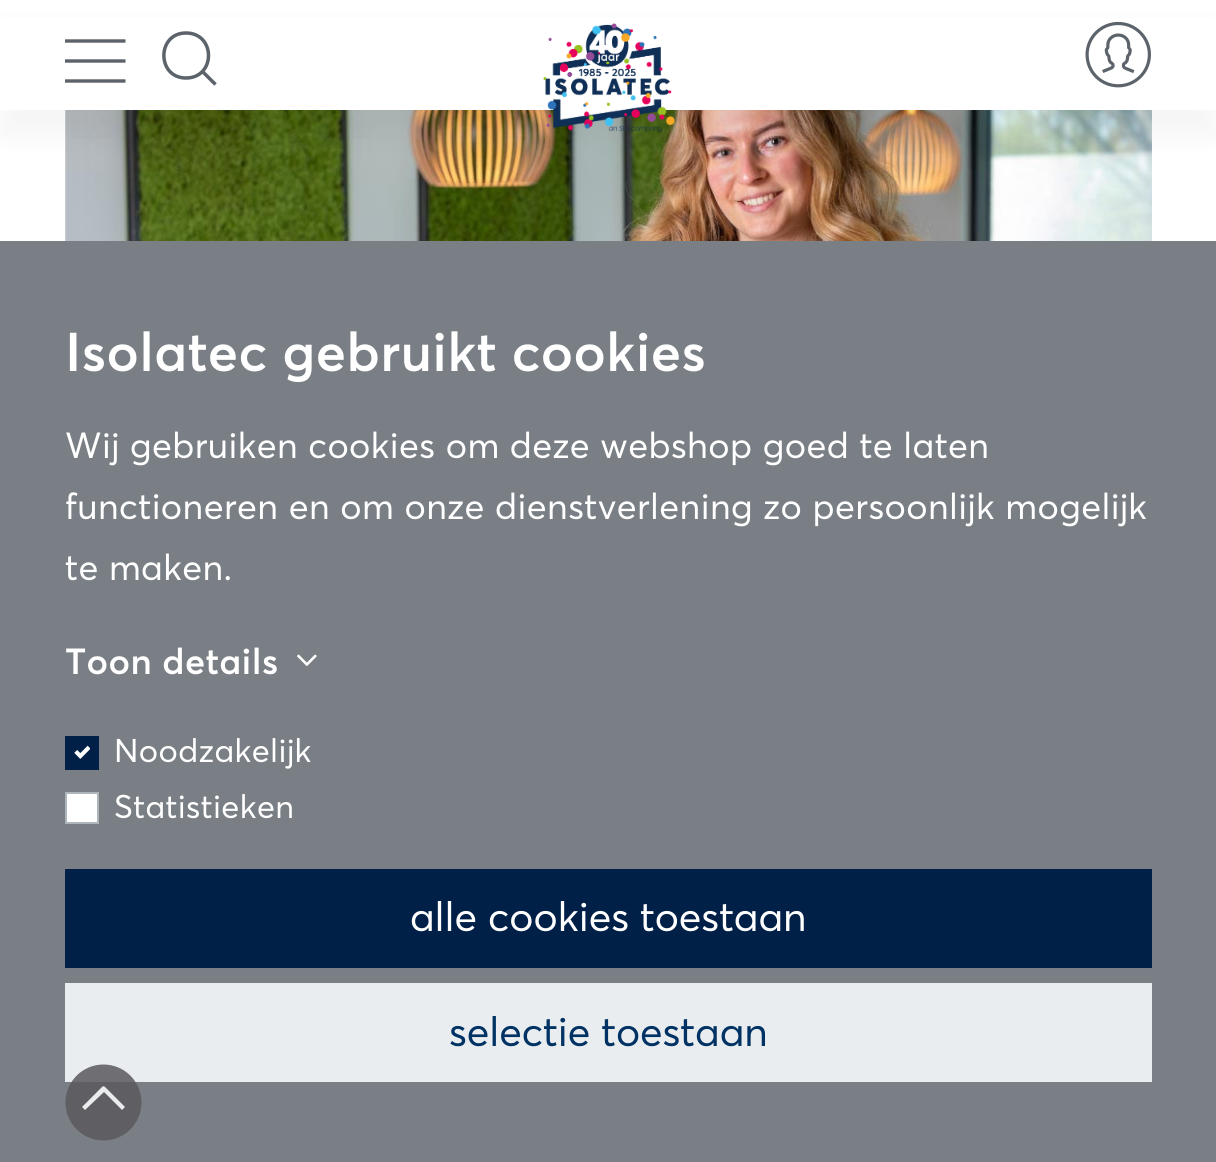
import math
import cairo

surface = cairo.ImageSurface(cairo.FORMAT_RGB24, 1216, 1162)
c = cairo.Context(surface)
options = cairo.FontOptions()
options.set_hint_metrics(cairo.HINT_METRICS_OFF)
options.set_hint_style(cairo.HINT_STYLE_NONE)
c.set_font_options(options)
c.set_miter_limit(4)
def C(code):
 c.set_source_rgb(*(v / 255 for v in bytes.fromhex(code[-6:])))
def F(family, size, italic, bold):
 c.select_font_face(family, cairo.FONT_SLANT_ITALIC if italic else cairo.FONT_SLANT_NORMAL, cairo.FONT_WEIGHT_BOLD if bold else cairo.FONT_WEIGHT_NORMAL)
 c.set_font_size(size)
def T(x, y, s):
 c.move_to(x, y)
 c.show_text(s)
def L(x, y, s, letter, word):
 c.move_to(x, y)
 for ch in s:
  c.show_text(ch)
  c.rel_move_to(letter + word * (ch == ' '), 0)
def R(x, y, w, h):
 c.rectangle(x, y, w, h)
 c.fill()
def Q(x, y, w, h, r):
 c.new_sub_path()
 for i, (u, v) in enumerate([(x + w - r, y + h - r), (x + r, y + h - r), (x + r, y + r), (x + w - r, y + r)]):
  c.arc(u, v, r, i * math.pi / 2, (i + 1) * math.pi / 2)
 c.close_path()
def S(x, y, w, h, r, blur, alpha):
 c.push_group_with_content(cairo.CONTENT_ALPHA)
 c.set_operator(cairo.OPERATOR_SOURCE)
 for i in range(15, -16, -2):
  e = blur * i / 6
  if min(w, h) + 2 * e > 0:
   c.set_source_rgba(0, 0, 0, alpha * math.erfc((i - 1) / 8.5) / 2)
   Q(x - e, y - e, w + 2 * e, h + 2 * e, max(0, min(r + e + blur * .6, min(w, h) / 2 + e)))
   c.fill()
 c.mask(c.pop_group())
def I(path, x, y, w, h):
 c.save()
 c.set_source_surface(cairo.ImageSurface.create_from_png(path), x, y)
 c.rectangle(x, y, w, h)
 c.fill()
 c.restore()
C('ffffff')
c.paint()
I('3.png',65,110,1087,131)
C('000000')
S(0,27,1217,110,0,13.5,.04)
C('ffffff')
R(0,18,1216,92)
c.new_path()
c.move_to(65,41)
c.line_to(125.5,41)
c.move_to(65,61)
c.line_to(125.5,61)
c.move_to(65,81)
c.line_to(125.5,81)
C('5c636a')
c.set_line_width(3.4)
c.stroke()
c.new_path()
c.move_to(186,78)
c.curve_to(216,78,216,33,186,33)
c.curve_to(156.5,33,156.5,78,186,78)
c.close_path()
c.move_to(202,71)
c.line_to(215.5,84.5)
c.set_line_width(3.5)
c.set_line_join(cairo.LINE_JOIN_ROUND)
c.stroke()
I('1.png',543,23,132,110)
I('2.png',1085,21,66,67)
C('7a7f85')
R(0,241,1216,921)
F('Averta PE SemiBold',53.9,0,0)
C('ffffff')
L(65,371,'Isolatec gebruikt cookies',.45,0)
F('Averta PE',35.9,0,0)
L(65,458,'Wij gebruiken cookies om deze webshop goed te laten',.45,0)
L(65,519,'functioneren en om onze dienstverlening zo persoonlijk mogelijk',.45,0)
L(65,580,'te maken.',.45,0)
F('Averta PE SemiBold',35.9,0,0)
L(65,674,'Toon details',.45,0)
I('4.png',297,654,20,12)
C('002048')
R(65,736,34,34)
F('Averta PE',32.5,0,0)
C('ffffff')
L(114,762,'Noodzakelijk',.45,0)
I('5.png',74,745,16,14)
c.rectangle(66,793,32,30)
c.fill_preserve()
C('adb5bd')
c.set_line_width(2)
c.set_line_join(cairo.LINE_JOIN_MITER)
c.stroke()
C('ffffff')
L(114,818,'Statistieken',.45,0)
C('002048')
R(65,869,1087,99)
F('Averta PE',40.75,0,0)
C('ffffff')
T(410,931,'alle cookies toestaan')
C('eaedef')
R(65,983,1087,99)
C('003264')
T(449,1046,'selectie toestaan')
c.set_source_rgba(0.353,0.349,0.365,0.85)
c.new_path()
c.arc(103.5,1102.5,38,0,2 * math.pi)
c.fill()
C('ebeced')
c.new_path()
c.move_to(104,1092)
c.line_to(122,1110)
c.line_to(125,1107)
c.line_to(105,1087)
c.curve_to(104,1086,103,1086,102,1087)
c.line_to(82,1107)
c.line_to(85,1110)
c.close_path()
c.fill()
surface.write_to_png('o.png')
